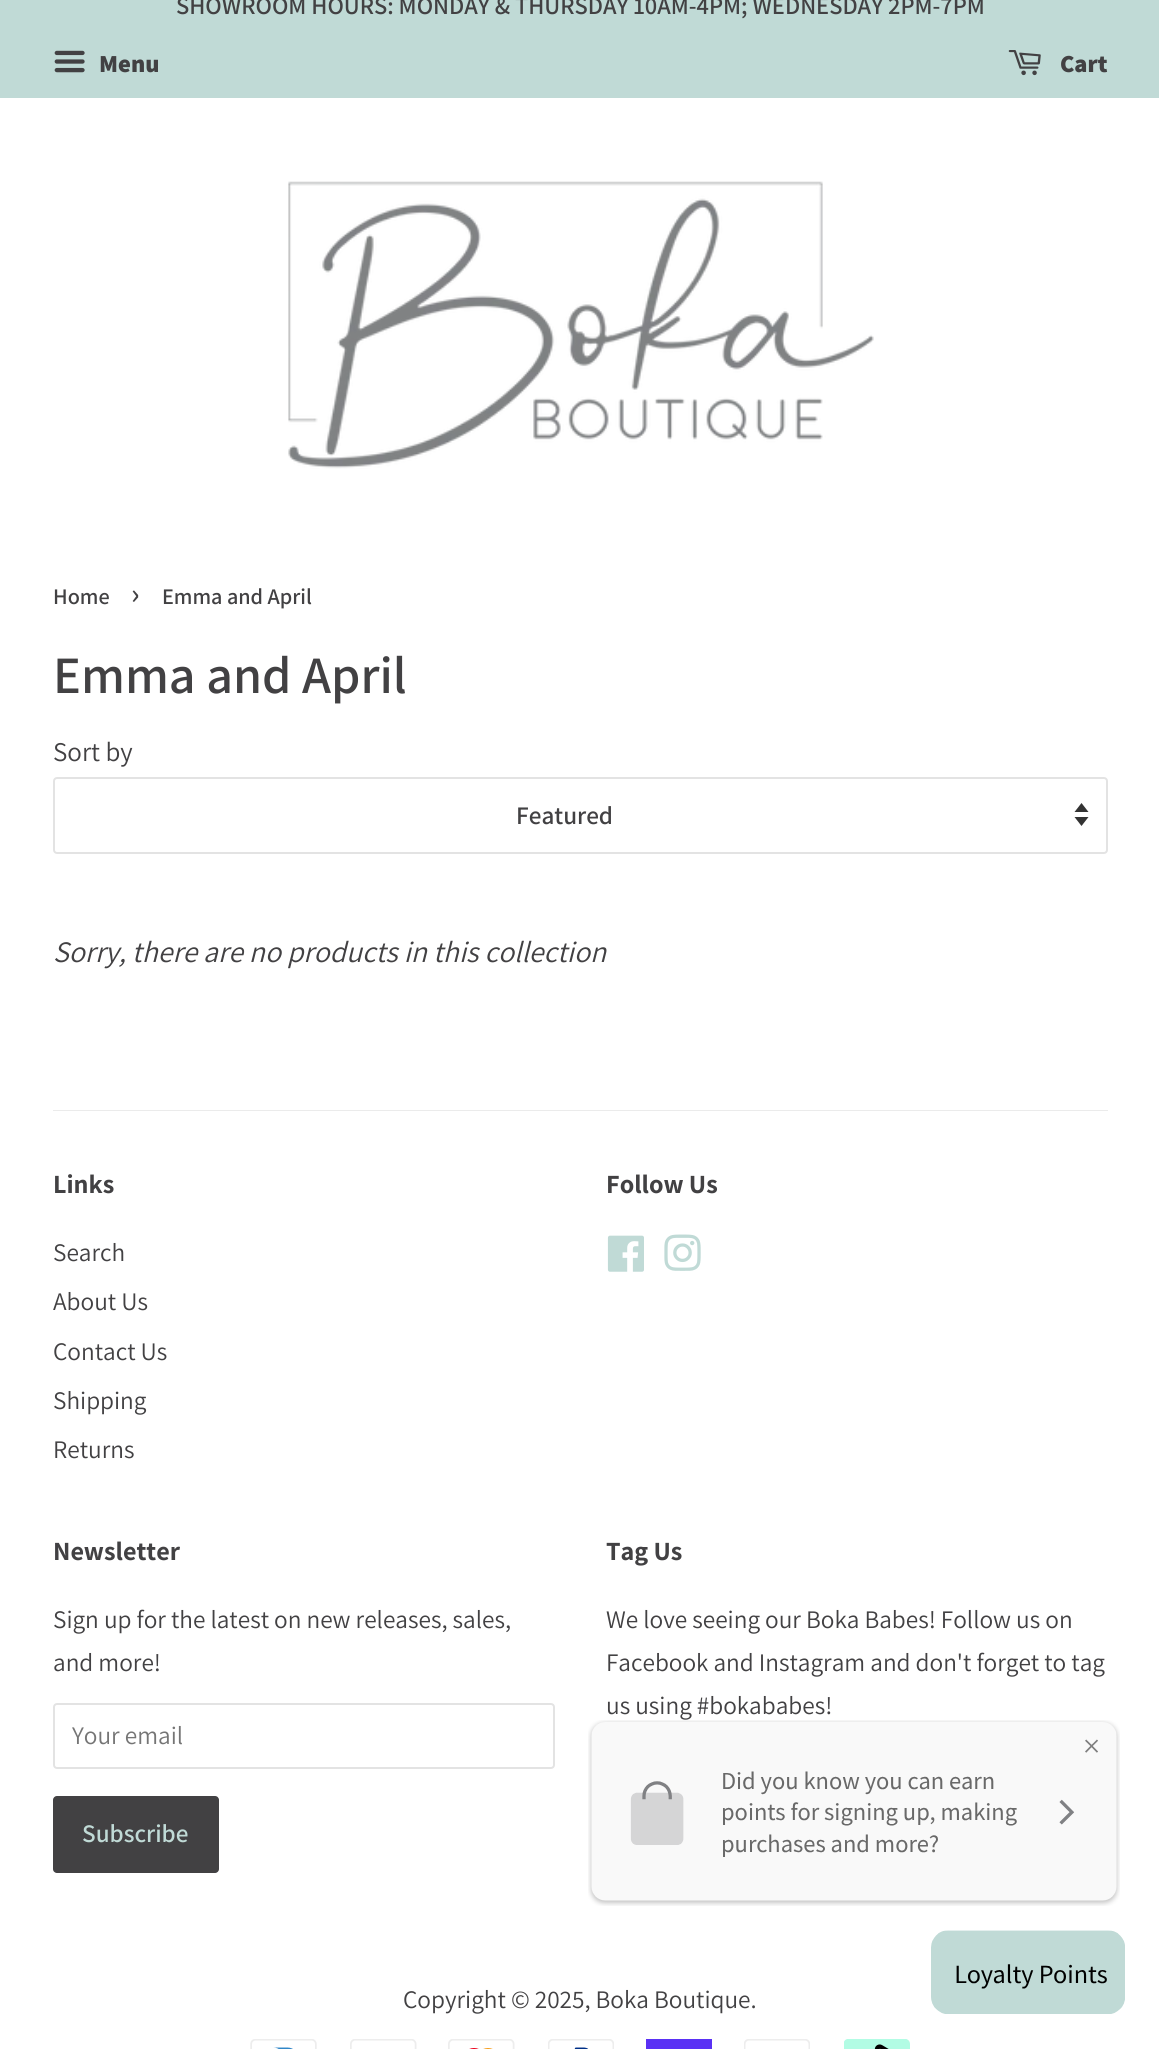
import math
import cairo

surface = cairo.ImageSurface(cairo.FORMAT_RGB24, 1159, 2049)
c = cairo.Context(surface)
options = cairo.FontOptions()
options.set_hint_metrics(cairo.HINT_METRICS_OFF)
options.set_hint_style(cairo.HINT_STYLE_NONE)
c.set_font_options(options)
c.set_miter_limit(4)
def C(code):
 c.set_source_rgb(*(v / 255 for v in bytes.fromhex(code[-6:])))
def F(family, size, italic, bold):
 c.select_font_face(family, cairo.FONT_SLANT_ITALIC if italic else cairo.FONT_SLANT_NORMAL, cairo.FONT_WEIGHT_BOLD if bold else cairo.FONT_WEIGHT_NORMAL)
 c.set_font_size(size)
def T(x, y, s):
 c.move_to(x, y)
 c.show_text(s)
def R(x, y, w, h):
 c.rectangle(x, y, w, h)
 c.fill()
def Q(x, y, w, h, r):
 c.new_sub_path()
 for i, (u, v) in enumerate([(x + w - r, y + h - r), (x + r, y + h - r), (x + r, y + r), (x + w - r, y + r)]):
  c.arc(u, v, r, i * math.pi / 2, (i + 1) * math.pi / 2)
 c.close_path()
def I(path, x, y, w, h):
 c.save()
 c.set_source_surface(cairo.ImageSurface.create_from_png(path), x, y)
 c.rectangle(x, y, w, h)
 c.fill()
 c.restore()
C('ffffff')
c.paint()
C('c0dad6')
R(0,0,1159,98)
F('Assistant SemiBold',24.5,0,0)
C('424143')
T(176,14,'SHOWROOM HOURS: MONDAY & THURSDAY 10AM-4PM; WEDNESDAY 2PM-7PM')
I('1.png',54,50,31,23)
F('Assistant ExtraBold',24.5,0,0)
T(99,72,'Menu')
I('2.png',1008,50,33,26)
T(1060,72,'Cart')
I('3.png',288,181,586,288)
F('Assistant SemiBold',22.25,0,0)
T(53,604,'Home')
F('Assistant SemiBold',31,0,0)
T(131,604,'›')
F('Assistant SemiBold',22.25,0,0)
T(162,604,'Emma and April')
F('Assistant SemiBold',52.5,0,0)
T(53,693,'Emma and April')
F('Assistant',27,0,0)
T(53,761,'Sort by')
C('333333')
c.new_path()
c.move_to(1074.5,817)
c.line_to(1081.5,826)
c.line_to(1088.5,817)
c.close_path()
c.move_to(1081.5,803)
c.line_to(1074.5,812)
c.line_to(1088.5,812)
c.close_path()
c.fill()
Q(54,778,1053,75,3)
C('e3e3e3')
c.stroke()
F('Assistant SemiBold',25.25,0,0)
C('424143')
T(516,824,'Featured')
F('Assistant',29.75,1,0)
T(53,962,'Sorry, there are no products in this collection')
C('ebebeb')
R(53,1110,1055,1)
F('Assistant',26.25,0,1)
C('424143')
T(53,1193,'Links')
F('Assistant',25.25,0,0)
T(53,1261,'Search')
T(53,1310,'About Us')
T(53,1360,'Contact Us')
T(53,1409,'Shipping')
T(53,1458,'Returns')
F('Assistant',26.25,0,1)
T(606,1193,'Follow Us')
I('4.png',607,1235,37,37)
I('5.png',664,1234,37,37)
T(53,1560,'Newsletter')
F('Assistant',25.25,0,0)
T(53,1628,'Sign up for the latest on new releases, sales,')
T(53,1671,'and more!')
Q(54,1704,500,64,3)
C('e3e3e3')
c.stroke()
C('757575')
T(72,1744,'Your email')
C('424143')
Q(53,1796,166,77,4)
c.fill()
F('Assistant SemiBold',25.25,0,0)
C('c0dad6')
T(82,1842,'Subscribe')
F('Assistant',26.25,0,1)
C('424143')
T(606,1560,'Tag Us')
F('Assistant',25.25,0,0)
T(606,1628,'We love seeing our Boka Babes! Follow us on')
T(606,1671,'Facebook and Instagram and don\'t forget to tag')
T(606,1714,'us using #bokababes!')
T(403,2008,'Copyright © 2025, Boka Boutique.')
I('6.png',250,2039,67,10)
I('7.png',350,2039,67,10)
I('8.png',448,2039,67,10)
I('9.png',548,2039,66,10)
C('5a31f4')
R(646,2039,66,10)
I('10.png',744,2039,66,10)
I('11.png',844,2039,66,10)
I('12.png',588,1720,532,186)
I('13.png',931,1930,194,84)
surface.write_to_png('o.png')
